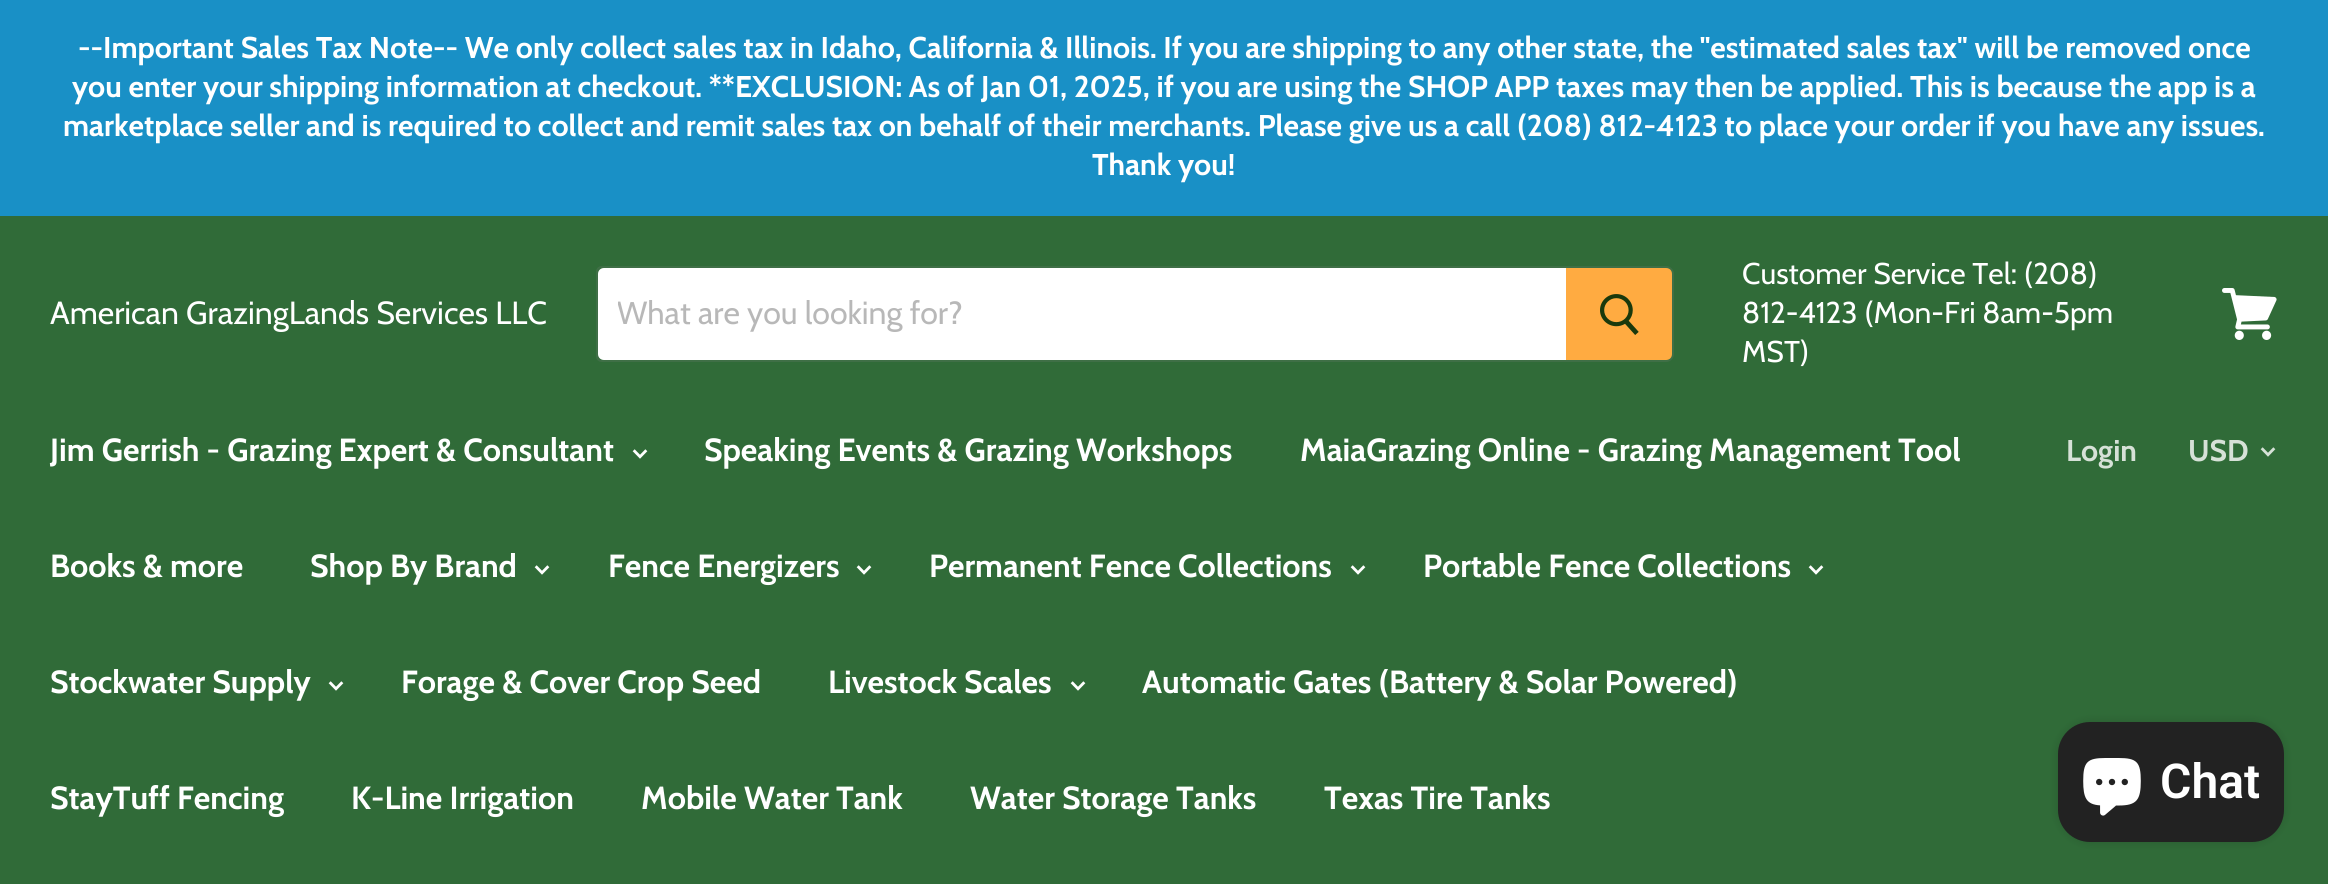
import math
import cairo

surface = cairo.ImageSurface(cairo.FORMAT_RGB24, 2328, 884)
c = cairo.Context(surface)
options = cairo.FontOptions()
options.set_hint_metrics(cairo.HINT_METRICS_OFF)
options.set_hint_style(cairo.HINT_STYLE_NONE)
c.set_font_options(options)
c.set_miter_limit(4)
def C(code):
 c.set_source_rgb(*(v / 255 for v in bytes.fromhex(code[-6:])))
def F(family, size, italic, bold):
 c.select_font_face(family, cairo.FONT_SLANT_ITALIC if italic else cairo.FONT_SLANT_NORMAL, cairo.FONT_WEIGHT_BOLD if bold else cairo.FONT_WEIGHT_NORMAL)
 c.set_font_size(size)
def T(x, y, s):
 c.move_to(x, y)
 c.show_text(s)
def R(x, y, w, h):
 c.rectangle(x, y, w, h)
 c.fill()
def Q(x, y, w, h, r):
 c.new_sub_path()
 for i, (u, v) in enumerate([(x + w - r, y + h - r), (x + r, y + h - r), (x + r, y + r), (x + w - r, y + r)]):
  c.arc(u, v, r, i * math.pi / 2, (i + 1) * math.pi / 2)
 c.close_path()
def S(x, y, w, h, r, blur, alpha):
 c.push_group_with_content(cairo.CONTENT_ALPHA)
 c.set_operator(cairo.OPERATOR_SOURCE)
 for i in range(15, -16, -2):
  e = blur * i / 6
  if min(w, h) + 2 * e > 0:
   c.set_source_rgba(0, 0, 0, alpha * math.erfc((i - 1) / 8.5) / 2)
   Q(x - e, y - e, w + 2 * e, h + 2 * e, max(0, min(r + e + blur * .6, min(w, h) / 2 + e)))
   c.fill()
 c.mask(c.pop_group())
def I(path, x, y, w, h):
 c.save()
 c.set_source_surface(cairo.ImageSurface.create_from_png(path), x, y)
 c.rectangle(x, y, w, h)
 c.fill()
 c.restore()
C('306b38')
c.paint()
C('1990c6')
R(0,0,2328,216)
F('Cabin',30,0,1)
C('ffffff')
T(78,58,'--Important Sales Tax Note-- We only collect sales tax in Idaho, California & Illinois. If you are shipping to any other state, the "estimated sales tax" will be removed once')
T(72,97,'you enter your shipping information at checkout. **EXCLUSION: As of Jan 01, 2025, if you are using the SHOP APP taxes may then be applied. This is because the app is a')
T(63,136,'marketplace seller and is required to collect and remit sales tax on behalf of their merchants. Please give us a call (208) 812-4123 to place your order if you have any issues.')
T(1092,175,'Thank you!')
F('Cabin',32,0,0)
T(50,324,'American GrazingLands Services LLC')
c.new_path()
c.move_to(602,267)
c.line_to(1666,267)
c.curve_to(1670,267,1673,270,1673,274)
c.line_to(1673,354)
c.curve_to(1673,358,1670,361,1666,361)
c.line_to(602,361)
c.curve_to(599,361,597,359,597,356)
c.line_to(597,272)
c.curve_to(597,269,599,267,602,267)
c.close_path()
c.set_source_rgba(0.498,0.498,0.498,0.2)
c.stroke()
C('ffffff')
c.new_path()
c.move_to(604,268)
c.line_to(1566,268)
c.line_to(1566,360)
c.line_to(604,360)
c.curve_to(600.5,360,598,357.5,598,354)
c.line_to(598,274)
c.curve_to(598,270.5,600.5,268,604,268)
c.close_path()
c.fill()
c.save()
c.rectangle(618,294,928,38)
c.clip()
C('b8b8b8')
T(617,324,'What are you looking for?')
c.restore()
C('ffab41')
c.new_path()
c.move_to(1567,269)
c.line_to(1666,269)
c.curve_to(1669,269,1671,271,1671,274)
c.line_to(1671,354)
c.curve_to(1671,357,1669,359,1666,359)
c.line_to(1567,359)
c.close_path()
c.fill_preserve()
c.stroke()
I('1.png',1600,294,39,41)
F('Cabin',30,0,0)
C('ffffff')
T(1742,284,'Customer Service Tel: (208)')
T(1742,323,'812-4123 (Mon-Fri 8am-5pm')
T(1742,362,'MST)')
I('2.png',2222,288,55,52)
F('Cabin',32,0,1)
T(50,461,'Jim Gerrish - Grazing Expert & Consultant')
I('3.png',632,449,16,10)
T(704,461,'Speaking Events & Grazing Workshops')
T(1300,461,'MaiaGrazing Online - Grazing Management Tool')
T(50,577,'Books & more')
T(310,577,'Shop By Brand')
I('3.png',534,565,16,10)
T(608,577,'Fence Energizers')
I('3.png',856,565,16,10)
T(929,577,'Permanent Fence Collections')
I('3.png',1350,565,16,10)
T(1423,577,'Portable Fence Collections')
I('3.png',1808,565,16,10)
T(50,693,'Stockwater Supply')
I('3.png',328,681,16,10)
T(401,693,'Forage & Cover Crop Seed')
T(828,693,'Livestock Scales')
I('3.png',1070,681,16,10)
T(1142,693,'Automatic Gates (Battery & Solar Powered)')
T(50,809,'StayTuff Fencing')
T(351,809,'K-Line Irrigation')
T(641,809,'Mobile Water Tank')
T(970,809,'Water Storage Tanks')
T(1324,809,'Texas Tire Tanks')
F('Cabin',30,0,1)
C('d6e1d7')
T(2066,461,'Login')
T(2188,461,'USD')
I('4.png',2260,447,16,10)
C('000000')
S(2058,722,226,120,32,5,.15)
C('222222')
Q(2058,722,226,120,32)
c.fill()
I('5.png',2083,758,58,58)
F('Roboto SemiBold',48,0,0)
C('ffffff')
T(2160,798,'Chat')
surface.write_to_png('o.png')
